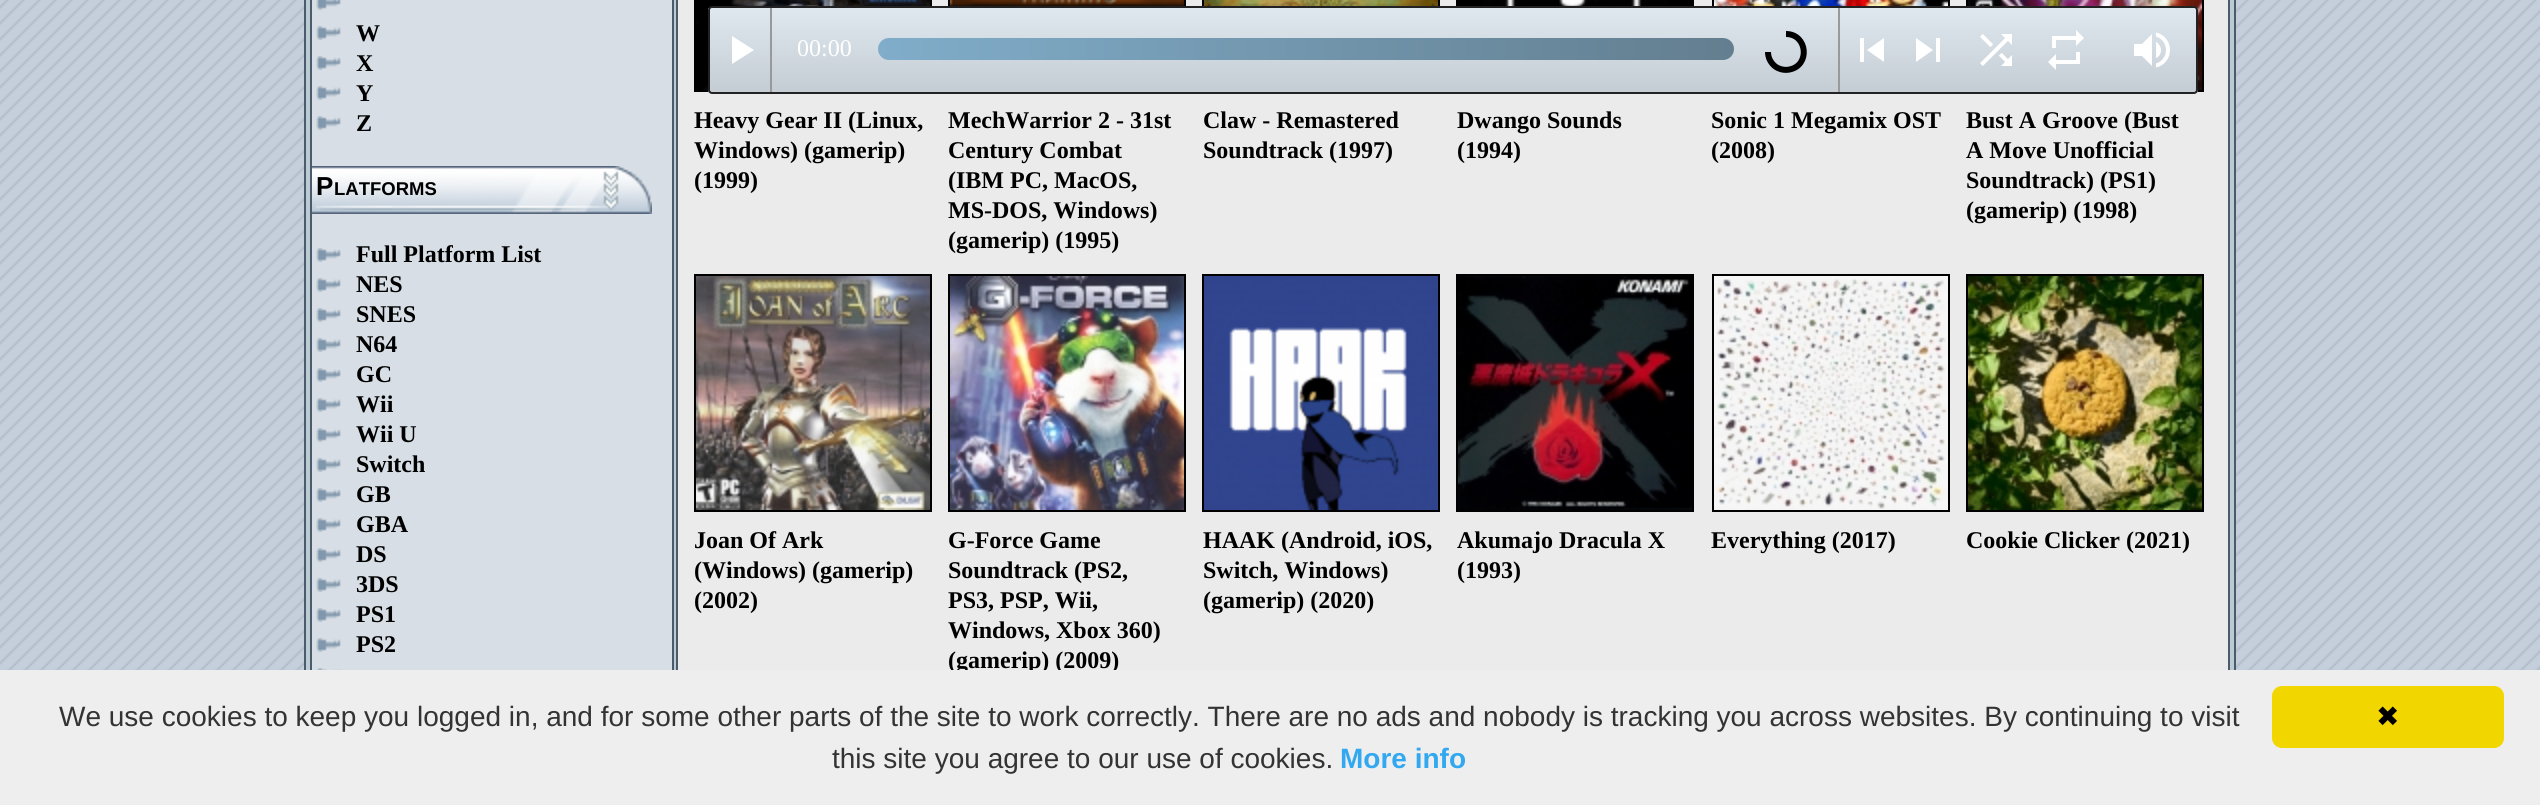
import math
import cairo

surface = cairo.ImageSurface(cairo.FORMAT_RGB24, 2540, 805)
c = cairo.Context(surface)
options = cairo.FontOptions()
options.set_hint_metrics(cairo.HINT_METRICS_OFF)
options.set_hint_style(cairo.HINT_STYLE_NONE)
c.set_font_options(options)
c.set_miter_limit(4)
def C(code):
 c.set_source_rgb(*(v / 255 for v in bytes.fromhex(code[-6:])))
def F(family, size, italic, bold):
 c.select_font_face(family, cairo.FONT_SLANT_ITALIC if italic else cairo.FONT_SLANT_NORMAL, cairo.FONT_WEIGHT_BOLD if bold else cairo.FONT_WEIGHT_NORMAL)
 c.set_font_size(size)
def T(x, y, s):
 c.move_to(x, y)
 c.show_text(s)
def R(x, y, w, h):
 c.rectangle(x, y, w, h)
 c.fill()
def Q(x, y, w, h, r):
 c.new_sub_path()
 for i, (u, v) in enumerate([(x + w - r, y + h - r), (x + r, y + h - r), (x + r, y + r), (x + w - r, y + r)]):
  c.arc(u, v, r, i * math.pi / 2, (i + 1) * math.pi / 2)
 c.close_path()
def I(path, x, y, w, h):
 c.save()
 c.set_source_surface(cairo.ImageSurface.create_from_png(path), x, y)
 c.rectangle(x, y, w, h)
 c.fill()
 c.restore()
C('ffffff')
c.paint()
I('1.png',0,0,2540,670)
C('bccbd2')
R(306,0,1928,670)
C('4b5b6e')
R(2234,0,2,670)
R(304,0,2,670)
C('d7dee5')
R(312,0,360,670)
C('4b5b6e')
R(672,0,2,670)
R(310,0,2,670)
I('2.png',316,0,25,10)
I('3.png',316,26,25,14)
F('Liberation Serif',24,0,1)
C('000000')
T(356,41,'W')
I('3.png',316,56,25,14)
T(356,71,'X')
I('3.png',316,86,25,14)
T(356,101,'Y')
I('3.png',316,116,25,14)
T(356,131,'Z')
I('4.png',312,166,340,48)
F('Liberation Sans',26,0,1)
T(316,195,'P')
F('Liberation Sans',18.5,0,1)
T(334,195,'LATFORMS')
I('3.png',316,248,25,14)
F('Liberation Serif',24,0,1)
T(356,262,'Full Platform List')
I('3.png',316,278,25,14)
T(356,292,'NES')
I('3.png',316,308,25,14)
T(356,322,'SNES')
I('3.png',316,338,25,14)
T(356,352,'N64')
I('3.png',316,368,25,14)
T(356,382,'GC')
I('3.png',316,398,25,14)
T(356,412,'Wii')
I('3.png',316,428,25,14)
T(356,442,'Wii U')
I('3.png',316,458,25,14)
T(356,472,'Switch')
I('3.png',316,488,25,14)
T(356,502,'GB')
I('3.png',316,518,25,14)
T(356,532,'GBA')
I('3.png',316,548,25,14)
T(356,562,'DS')
I('3.png',316,578,25,14)
T(356,592,'3DS')
I('3.png',316,608,25,14)
T(356,622,'PS1')
I('3.png',316,638,25,14)
T(356,652,'PS2')
I('5.png',316,668,25,2)
C('4b5b6e')
R(2228,0,2,670)
C('ebebeb')
R(678,0,1550,670)
C('4b5b6e')
R(676,0,2,670)
c.rectangle(695,-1,236,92)
C('000000')
c.stroke()
I('9.png',696,0,234,90)
c.rectangle(949,-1,236,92)
c.stroke()
c.rectangle(1203,-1,236,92)
c.stroke()
c.rectangle(1457,-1,236,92)
c.stroke()
c.rectangle(1713,-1,236,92)
c.stroke()
c.rectangle(1967,-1,236,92)
c.stroke()
I('14.png',1968,0,234,90)
c.save()
Q(708,6,1490,88,4)
c.clip()
gradient = cairo.LinearGradient(1453,8,1453,92)
gradient.add_color_stop_rgba(0,0.875,0.906,0.937,1)
gradient.add_color_stop_rgba(1,0.769,0.8,0.831,1)
c.set_source(gradient)
R(708,8,1490,84)
c.restore()
Q(709,7,1488,86,3)
C('222222')
c.stroke()
C('999999')
R(770,8,2,84)
C('ffffff')
c.new_path()
c.move_to(732,36)
c.line_to(754,50)
c.line_to(732,64)
c.close_path()
c.fill()
F('Liberation Serif',24,0,0)
T(797,56,'00:00')
gradient = cairo.LinearGradient(878,49,1734,49)
gradient.add_color_stop_rgba(0,0.502,0.678,0.792,1)
gradient.add_color_stop_rgba(1,0.388,0.494,0.561,1)
c.set_source(gradient)
Q(878,38,856,22,11)
c.fill()
C('999999')
R(1838,8,2,84)
c.new_path()
c.move_to(1786,34)
c.curve_to(1807.5,34,1810.5,65.5,1789.5,69.5)
c.curve_to(1785,70.5,1780,69.5,1776,67)
c.curve_to(1771,63.5,1768,58,1768,52)
C('000000')
c.set_line_width(6)
c.stroke()
C('ffffff')
c.new_path()
c.move_to(1867,50)
c.line_to(1884,38)
c.line_to(1884,62)
c.close_path()
c.move_to(1860,38)
c.line_to(1864,38)
c.line_to(1864,62)
c.line_to(1860,62)
c.close_path()
c.fill()
c.new_path()
c.move_to(1936,38)
c.line_to(1940,38)
c.line_to(1940,62)
c.line_to(1936,62)
c.close_path()
c.move_to(1916,62)
c.line_to(1916,38)
c.line_to(1933,50)
c.close_path()
c.fill()
I('6.png',1980,34,32,32)
I('7.png',2048,30,36,40)
I('8.png',2134,32,36,36)
F('Liberation Serif',24,0,1)
C('000000')
T(694,128,'Heavy Gear II (Linux,')
T(694,158,'Windows) (gamerip)')
T(694,188,'(1999)')
I('10.png',950,0,234,6)
T(948,128,'MechWarrior 2 - 31st')
T(948,158,'Century Combat')
T(948,188,'(IBM PC, MacOS,')
T(948,218,'MS-DOS, Windows)')
T(948,248,'(gamerip) (1995)')
I('11.png',1204,0,234,6)
T(1203,128,'Claw - Remastered')
T(1203,158,'Soundtrack (1997)')
I('12.png',1458,0,234,6)
T(1457,128,'Dwango Sounds')
T(1457,158,'(1994)')
I('13.png',1714,0,234,6)
T(1711,128,'Sonic 1 Megamix OST')
T(1711,158,'(2008)')
T(1966,128,'Bust A Groove (Bust')
T(1966,158,'A Move Unofficial')
T(1966,188,'Soundtrack) (PS1)')
T(1966,218,'(gamerip) (1998)')
c.rectangle(695,275,236,236)
c.set_line_width(2)
c.stroke()
I('15.png',696,276,234,234)
T(694,548,'Joan Of Ark')
T(694,578,'(Windows) (gamerip)')
T(694,608,'(2002)')
c.rectangle(949,275,236,236)
c.stroke()
I('16.png',950,276,234,234)
T(948,548,'G-Force Game')
T(948,578,'Soundtrack (PS2,')
T(948,608,'PS3, PSP, Wii,')
T(948,638,'Windows, Xbox 360)')
T(948,668,'(gamerip) (2009)')
c.rectangle(1203,275,236,236)
c.stroke()
I('17.png',1204,276,234,234)
T(1203,548,'HAAK (Android, iOS,')
T(1203,578,'Switch, Windows)')
T(1203,608,'(gamerip) (2020)')
c.rectangle(1457,275,236,236)
c.stroke()
I('18.png',1458,276,234,234)
T(1457,548,'Akumajo Dracula X')
T(1457,578,'(1993)')
c.rectangle(1713,275,236,236)
c.stroke()
I('19.png',1714,276,234,234)
T(1711,548,'Everything (2017)')
c.rectangle(1967,275,236,236)
c.stroke()
I('20.png',1968,276,234,234)
T(1966,548,'Cookie Clicker (2021)')
C('eeeeee')
R(0,670,2540,135)
F('Liberation Sans',28,0,0)
C('333333')
T(59,726,'We use cookies to keep you logged in, and for some other parts of the site to work correctly. There are no ads and nobody is tracking you across websites. By continuing to visit')
T(832,768,'this site you agree to our use of cookies.')
F('Liberation Sans',28,0,1)
C('31a8f0')
T(1340,768,'More info')
C('f1d600')
Q(2272,686,232,62,10)
c.fill()
F('DejaVu Sans',28,0,0)
C('000000')
T(2376,726,'✖')
surface.write_to_png('o.png')
